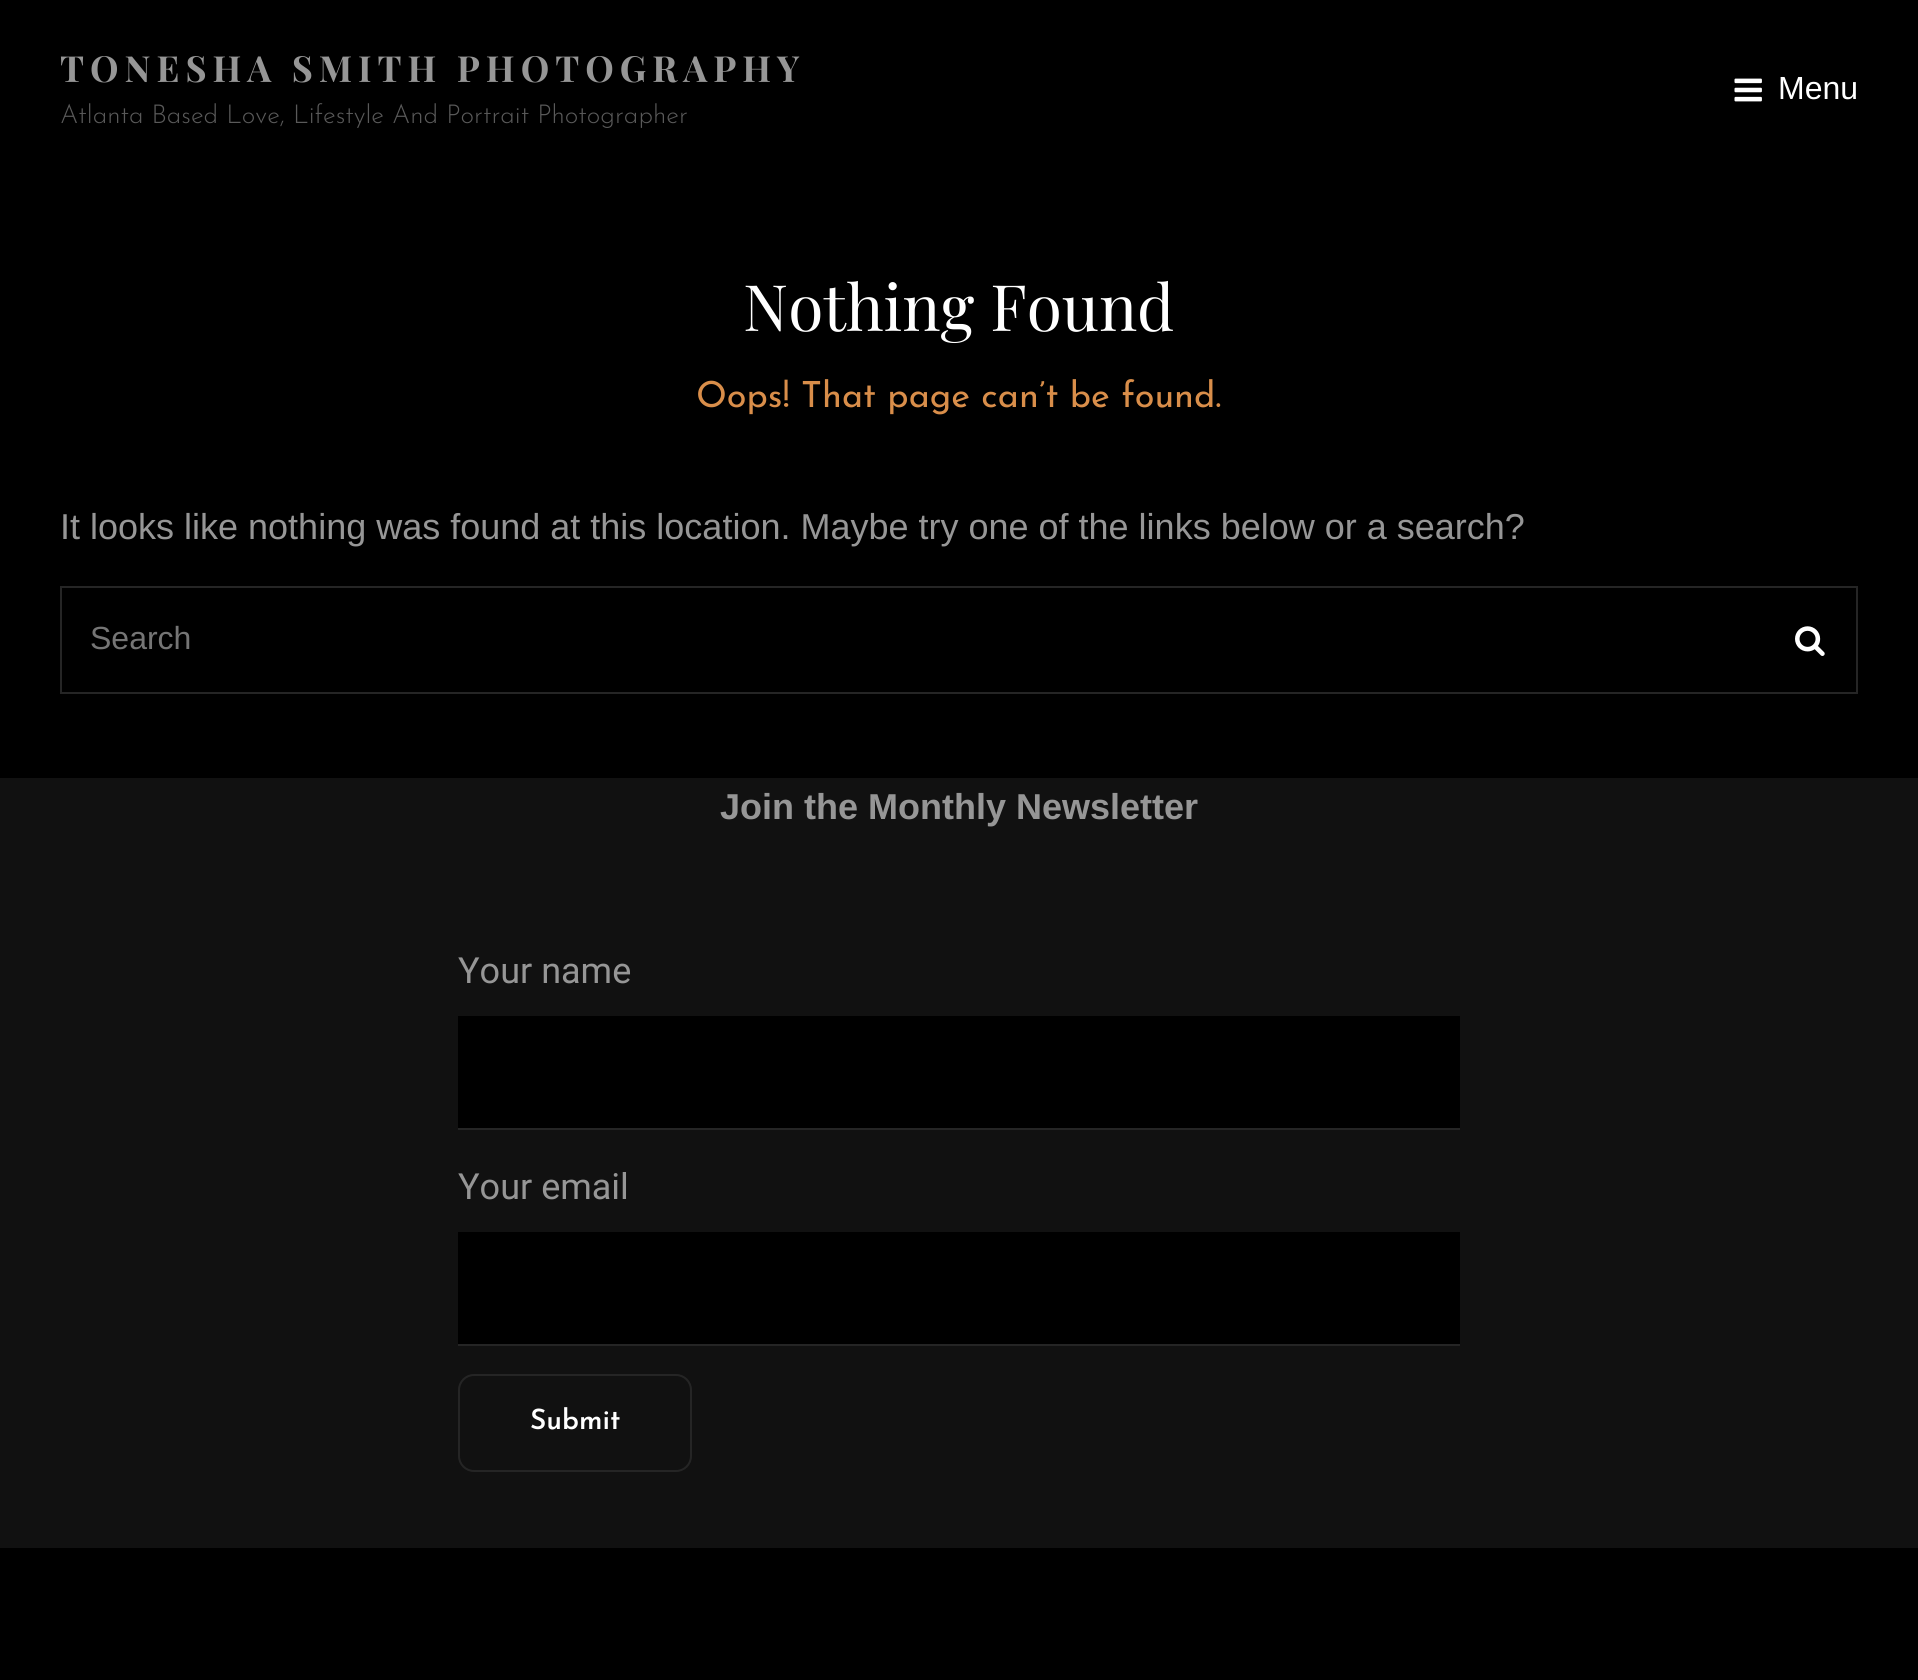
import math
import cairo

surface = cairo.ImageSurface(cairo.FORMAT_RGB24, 1918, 1680)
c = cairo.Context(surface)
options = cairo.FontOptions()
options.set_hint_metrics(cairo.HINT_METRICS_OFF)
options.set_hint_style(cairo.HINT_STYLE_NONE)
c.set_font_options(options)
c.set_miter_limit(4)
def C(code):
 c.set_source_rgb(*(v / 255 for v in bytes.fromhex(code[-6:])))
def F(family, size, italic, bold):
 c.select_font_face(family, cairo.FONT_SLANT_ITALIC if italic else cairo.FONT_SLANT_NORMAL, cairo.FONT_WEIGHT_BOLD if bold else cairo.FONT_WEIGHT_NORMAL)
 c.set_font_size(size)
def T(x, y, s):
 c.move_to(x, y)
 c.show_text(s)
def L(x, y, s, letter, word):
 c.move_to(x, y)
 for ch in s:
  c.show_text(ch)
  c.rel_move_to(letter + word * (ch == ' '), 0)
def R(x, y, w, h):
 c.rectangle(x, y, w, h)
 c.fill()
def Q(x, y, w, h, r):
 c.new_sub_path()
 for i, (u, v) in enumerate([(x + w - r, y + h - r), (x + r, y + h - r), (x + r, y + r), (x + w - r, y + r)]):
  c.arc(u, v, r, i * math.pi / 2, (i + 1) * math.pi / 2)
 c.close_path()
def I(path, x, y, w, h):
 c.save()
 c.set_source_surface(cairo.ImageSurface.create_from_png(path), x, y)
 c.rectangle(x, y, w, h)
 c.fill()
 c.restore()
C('000000')
c.paint()
F('Playfair Display',36,0,1)
C('969696')
L(60,82,'TONESHA SMITH PHOTOGRAPHY',6,0)
F('Josefin Sans Light',26,0,0)
C('5a5a5a')
T(60,123,'Atlanta Based Love, Lifestyle And Portrait Photographer')
I('1.png',1734,78,28,24)
F('Liberation Sans',32,0,0)
C('ffffff')
T(1778,99,'Menu')
F('Playfair Display',64,0,0)
T(743,331,'Nothing Found')
F('Josefin Sans',36,0,0)
C('d98e4a')
T(696,407,'Oops! That page can’t be found.')
F('Liberation Sans',36,0,0)
C('969696')
T(60,539,'It looks like nothing was found at this location. Maybe try one of the links below or a search?')
c.rectangle(61,587,1796,106)
C('252525')
c.stroke()
F('Liberation Sans',32,0,0)
C('757575')
T(90,649,'Search')
I('2.png',1795,626,30,30)
C('111111')
R(0,778,1918,770)
F('Liberation Sans',36,0,1)
C('969696')
T(720,819,'Join the Monthly Newsletter')
F('Roboto',36,0,0)
T(458,983,'Your name')
C('000000')
R(458,1016,1002,112)
C('252525')
R(458,1128,1002,2)
C('969696')
T(458,1199,'Your email')
C('000000')
R(458,1232,1002,112)
C('252525')
R(458,1344,1002,2)
Q(459,1375,232,96,15)
c.stroke()
F('Josefin Sans SemiBold',28,0,0)
C('ffffff')
T(530,1429,'Submit')
surface.write_to_png('o.png')
